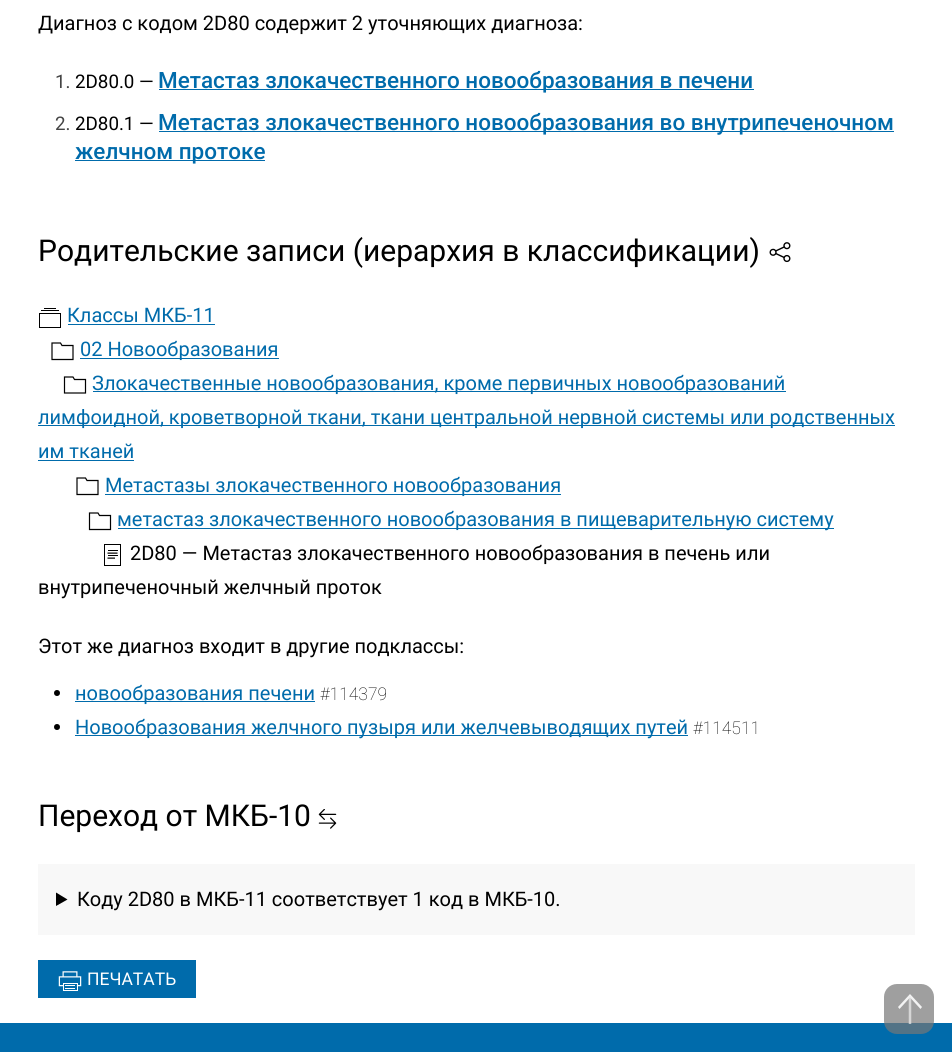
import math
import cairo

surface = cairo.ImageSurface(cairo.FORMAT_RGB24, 952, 1052)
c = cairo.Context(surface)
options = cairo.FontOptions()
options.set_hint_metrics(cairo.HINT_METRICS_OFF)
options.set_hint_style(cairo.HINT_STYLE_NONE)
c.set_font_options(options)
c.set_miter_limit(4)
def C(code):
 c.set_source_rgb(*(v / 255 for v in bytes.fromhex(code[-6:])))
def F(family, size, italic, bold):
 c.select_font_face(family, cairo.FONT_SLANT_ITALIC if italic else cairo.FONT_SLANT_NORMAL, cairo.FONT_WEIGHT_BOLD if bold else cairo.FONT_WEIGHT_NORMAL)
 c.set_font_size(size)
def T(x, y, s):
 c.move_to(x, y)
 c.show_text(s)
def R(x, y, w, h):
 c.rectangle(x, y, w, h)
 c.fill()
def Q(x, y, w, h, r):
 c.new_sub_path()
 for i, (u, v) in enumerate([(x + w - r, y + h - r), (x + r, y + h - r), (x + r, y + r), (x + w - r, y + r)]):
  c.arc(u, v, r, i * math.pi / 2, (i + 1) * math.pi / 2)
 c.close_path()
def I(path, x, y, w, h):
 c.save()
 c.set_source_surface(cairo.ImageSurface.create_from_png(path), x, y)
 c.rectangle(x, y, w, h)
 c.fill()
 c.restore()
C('ffffff')
c.paint()
F('Roboto',20,0,0)
C('000000')
T(38,30,'Диагноз с кодом 2D80 содержит 2 уточняющих диагноза:')
F('Roboto',18.75,0,0)
C('444444')
T(55,88,'1.')
C('000000')
T(75,88,'2D80.0 —')
C('006bab')
R(159,89,595,1)
F('Roboto Medium',22.5,0,0)
T(158,88,'Метастаз злокачественного новообразования в печени')
F('Roboto',18.75,0,0)
C('444444')
T(55,130,'2.')
C('000000')
T(75,130,'2D80.1 —')
C('006bab')
R(159,131,735,1)
F('Roboto Medium',22.5,0,0)
T(158,130,'Метастаз злокачественного новообразования во внутрипеченочном')
R(75,160,190,1)
T(75,159,'желчном протоке')
F('Roboto',30,0,0)
C('000000')
T(38,261,'Родительские записи (иерархия в классификации)')
I('1.png',769,242,22,21)
R(44,308,12,1)
R(41,310,18,1)
c.rectangle(39.5,313.5,21,14)
c.set_line_width(1)
c.stroke()
F('Roboto',20,0,0)
C('006bab')
T(67,322,'Классы МКБ-11')
R(68,324,147,1)
R(80,358,199,1)
T(80,356,'02 Новообразования')
c.new_path()
c.move_to(62,345.5)
c.line_to(60.5,343)
c.line_to(52,343)
c.line_to(52,359.5)
c.line_to(73,359.5)
c.line_to(73,345.5)
c.close_path()
c.move_to(74.5,379.5)
c.line_to(73,377)
c.line_to(64.5,377)
c.line_to(64.5,393)
c.line_to(85.5,393)
c.line_to(85.5,379.5)
c.close_path()
C('000000')
c.set_line_width(1.2)
c.stroke()
C('006bab')
R(93,391,693,1)
T(92,390,'Злокачественные новообразования, кроме первичных новообразований')
R(38,425,857,1)
T(38,424,'лимфоидной, кроветворной ткани, ткани центральной нервной системы или родственных')
T(38,458,'им тканей')
R(38,460,96,1)
R(105,494,456,1)
T(105,492,'Метастазы злокачественного новообразования')
c.new_path()
c.move_to(87,480.5)
c.line_to(85.5,478)
c.line_to(77,478)
c.line_to(77,494.5)
c.line_to(98,494.5)
c.line_to(98,480.5)
c.close_path()
c.move_to(99.5,515.5)
c.line_to(98,513)
c.line_to(89.5,513)
c.line_to(89.5,529.5)
c.line_to(110.5,529.5)
c.line_to(110.5,515.5)
c.close_path()
C('000000')
c.stroke()
C('006bab')
R(118,528,716,1)
T(117,526,'метастаз злокачественного новообразования в пищеварительную систему')
I('2.png',104,544,17,22)
C('000000')
T(130,560,'2D80 — Метастаз злокачественного новообразования в печень или')
T(38,594,'внутрипеченочный желчный проток')
T(38,653,'Этот же диагноз входит в другие подклассы:')
c.new_path()
c.arc(57,693,3,0,2 * math.pi)
c.fill()
C('006bab')
R(75,701,240,1)
T(75,700,'новообразования печени')
F('Roboto Thin',17.5,0,0)
C('000000')
T(320,700,'#114379')
c.new_path()
c.arc(57,727,3,0,2 * math.pi)
c.fill()
C('006bab')
R(75,735,613,1)
F('Roboto',20,0,0)
T(75,734,'Новообразования желчного пузыря или желчевыводящих путей')
F('Roboto Thin',17.5,0,0)
C('000000')
T(693,734,'#114511')
F('Roboto',30,0,0)
T(38,826,'Переход от МКБ-10')
I('3.png',318,809,19,20)
C('f8f8f8')
R(38,864,877,71)
C('000000')
c.new_path()
c.move_to(56,892.5)
c.line_to(67.5,899.5)
c.line_to(56,906)
c.close_path()
c.fill()
F('Roboto',20,0,0)
T(77,906,'Коду 2D80 в МКБ-11 соответствует 1 код в МКБ-10.')
C('006bab')
R(38,960,158,38)
I('4.png',58,971,24,20)
F('Roboto',17.5,0,0)
C('ffffff')
T(87,985,'ПЕЧАТАТЬ')
C('006bab')
R(0,1023,952,29)
c.set_source_rgba(0.467,0.467,0.467,0.7)
Q(884,984,50,50,13)
c.fill()
C('f3f3f3')
c.new_path()
c.move_to(910,994)
c.line_to(922,1007)
c.line_to(920.5,1009)
c.line_to(910,997.5)
c.line_to(899.5,1009)
c.line_to(898,1007)
c.close_path()
c.fill()
c.new_path()
c.move_to(910,1024)
c.line_to(910,996)
c.set_source_rgba(0.933,0.933,0.933,0.7)
c.set_line_width(2.5)
c.stroke()
surface.write_to_png('o.png')
